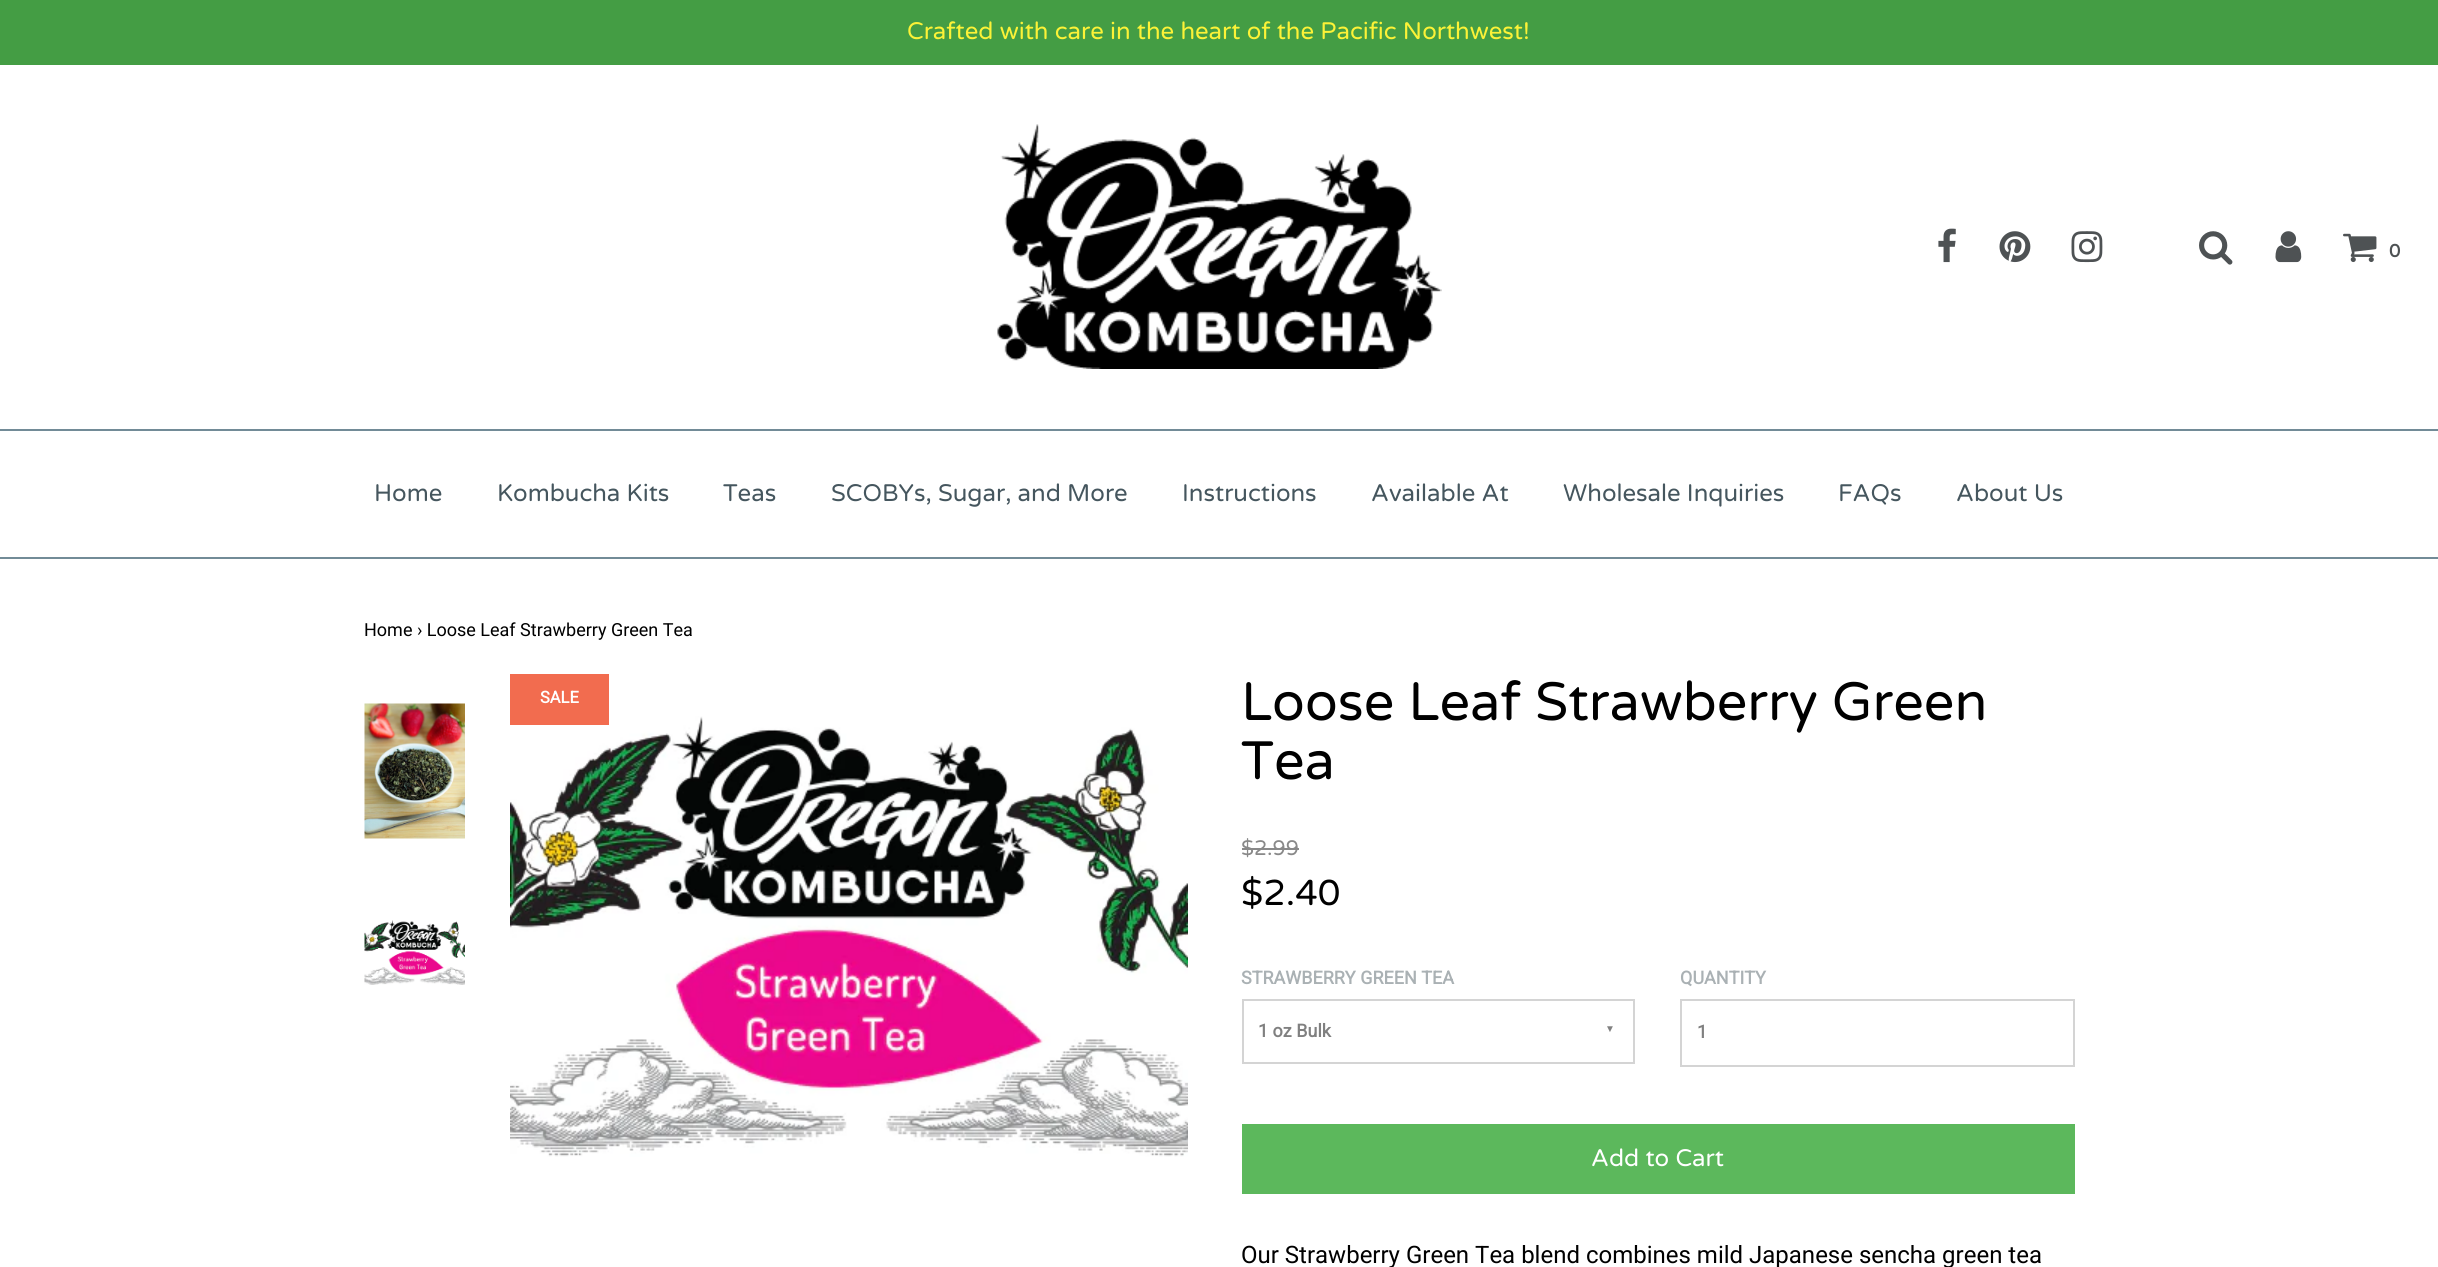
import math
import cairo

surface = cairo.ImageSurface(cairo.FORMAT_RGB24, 2438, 1267)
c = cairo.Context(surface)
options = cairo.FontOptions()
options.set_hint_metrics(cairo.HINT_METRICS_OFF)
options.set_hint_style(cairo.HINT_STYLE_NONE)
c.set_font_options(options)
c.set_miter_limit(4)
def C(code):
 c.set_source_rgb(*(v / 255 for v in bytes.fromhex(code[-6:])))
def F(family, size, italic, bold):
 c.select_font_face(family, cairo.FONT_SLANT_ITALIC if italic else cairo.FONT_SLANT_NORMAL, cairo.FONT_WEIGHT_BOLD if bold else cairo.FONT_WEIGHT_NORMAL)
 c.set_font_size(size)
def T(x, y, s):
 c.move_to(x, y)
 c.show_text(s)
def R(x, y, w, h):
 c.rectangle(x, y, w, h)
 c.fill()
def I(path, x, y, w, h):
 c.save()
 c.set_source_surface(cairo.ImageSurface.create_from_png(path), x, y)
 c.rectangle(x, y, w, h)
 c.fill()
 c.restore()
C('ffffff')
c.paint()
C('449d44')
R(0,0,2438,65)
F('Varela Round',24,0,0)
C('fcf237')
T(907,39,'Crafted with care in the heart of the Pacific Northwest!')
I('1.png',997,124,445,245)
I('2.png',1938,228,18,35)
I('3.png',1999,231,32,32)
I('4.png',2071,231,32,32)
I('5.png',2199,231,34,34)
I('6.png',2275,231,27,32)
I('7.png',2343,233,34,30)
F('Varela Round',18,0,1)
C('4e5254')
T(2389,257,'0')
C('728b97')
R(0,429,2438,2)
R(0,557,2438,2)
F('Varela Round',24,0,0)
C('45565e')
T(374,501,'Home')
T(497,501,'Kombucha Kits')
T(723,501,'Teas')
T(831,501,'SCOBYs, Sugar, and More')
T(1182,501,'Instructions')
T(1371,501,'Available At')
T(1563,501,'Wholesale Inquiries')
T(1838,501,'FAQs')
T(1956,501,'About Us')
F('Roboto',18,0,0)
C('000000')
T(364,636,'Home › Loose Leaf Strawberry Green Tea')
I('8.png',510,716,678,441)
C('f26c4f')
R(510,674,99,51)
F('Roboto',16.5,0,1)
C('ffffff')
T(540,703,'SALE')
F('Varela Round',54,0,0)
C('000000')
T(1241,720,'Loose Leaf Strawberry Green')
T(1241,779,'Tea')
F('Varela Round',21,0,0)
C('898989')
T(1241,855,'$2.99')
R(1242,848,57,2)
F('Varela Round',36,0,0)
C('000000')
T(1241,905,'$2.40')
F('Roboto',18,0,1)
C('aab1b4')
T(1241,984,'STRAWBERRY GREEN TEA')
c.rectangle(1243,1000,391,63)
C('d4d4d4')
c.stroke()
C('808080')
T(1258,1037,'1 oz Bulk')
F('Liberation Sans',10,0,1)
T(1605,1032,'▼')
F('Roboto',18,0,1)
C('aab1b4')
T(1680,984,'QUANTITY')
c.rectangle(1681,1000,393,66)
C('d4d4d4')
c.stroke()
C('808080')
T(1697,1038,'1')
C('5cb85c')
R(1242,1124,833,70)
F('Varela Round',24,0,0)
C('ffffff')
T(1591,1166,'Add to Cart')
F('Roboto',24,0,0)
C('000000')
T(1241,1263,'Our Strawberry Green Tea blend combines mild Japanese sencha green tea')
I('9.png',364,703,101,136)
I('10.png',364,920,101,65)
surface.write_to_png('o.png')
